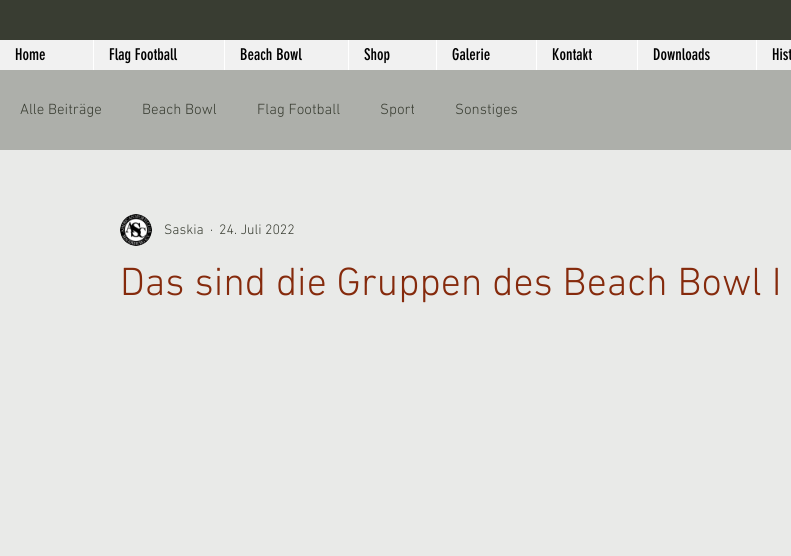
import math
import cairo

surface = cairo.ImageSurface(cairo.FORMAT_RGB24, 791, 556)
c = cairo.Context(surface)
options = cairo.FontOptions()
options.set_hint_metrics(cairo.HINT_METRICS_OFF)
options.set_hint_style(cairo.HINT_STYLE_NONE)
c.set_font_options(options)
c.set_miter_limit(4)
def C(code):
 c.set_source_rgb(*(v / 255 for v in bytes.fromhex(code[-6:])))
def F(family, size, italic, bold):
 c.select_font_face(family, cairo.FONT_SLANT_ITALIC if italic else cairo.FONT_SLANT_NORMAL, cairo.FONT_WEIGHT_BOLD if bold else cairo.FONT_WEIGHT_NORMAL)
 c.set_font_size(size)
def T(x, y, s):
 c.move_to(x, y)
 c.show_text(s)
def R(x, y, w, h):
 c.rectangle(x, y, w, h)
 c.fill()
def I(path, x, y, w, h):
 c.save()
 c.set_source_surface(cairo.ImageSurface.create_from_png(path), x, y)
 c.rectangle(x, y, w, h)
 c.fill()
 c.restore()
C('393d32')
c.paint()
C('f1f1f1')
R(0,40,791,30)
F('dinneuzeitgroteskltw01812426',16,0,0)
C('000000')
T(15,60,'Home')
C('ffffff')
R(93,40,1,30)
C('000000')
T(109,60,'Flag Football')
C('ffffff')
R(224,40,1,30)
C('000000')
T(240,60,'Beach Bowl')
C('ffffff')
R(348,40,1,30)
C('000000')
T(364,60,'Shop')
C('ffffff')
R(436,40,1,30)
C('000000')
T(452,60,'Galerie')
C('ffffff')
R(536,40,1,30)
C('000000')
T(552,60,'Kontakt')
C('ffffff')
R(637,40,1,30)
C('000000')
T(653,60,'Downloads')
C('ffffff')
R(756,40,1,30)
C('000000')
T(772,60,'Hist')
C('adafaa')
R(0,70,791,80)
F('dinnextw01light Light',15,0,0)
C('393d32')
T(20,114,'Alle Beiträge')
T(142,114,'Beach Bowl')
T(257,114,'Flag Football')
T(380,114,'Sport')
T(455,114,'Sonstiges')
C('e9eae8')
R(0,150,791,406)
I('1.png',120,214,32,32)
F('dinnextw01light Light',14,0,0)
C('393d32')
T(164,234,'Saskia')
T(210,234,'·')
T(219,234,'24. Juli 2022')
F('dinnextw01light Light',40,0,0)
C('852a0c')
T(120,295,'Das sind die Gruppen des Beach Bowl I')
surface.write_to_png('o.png')
